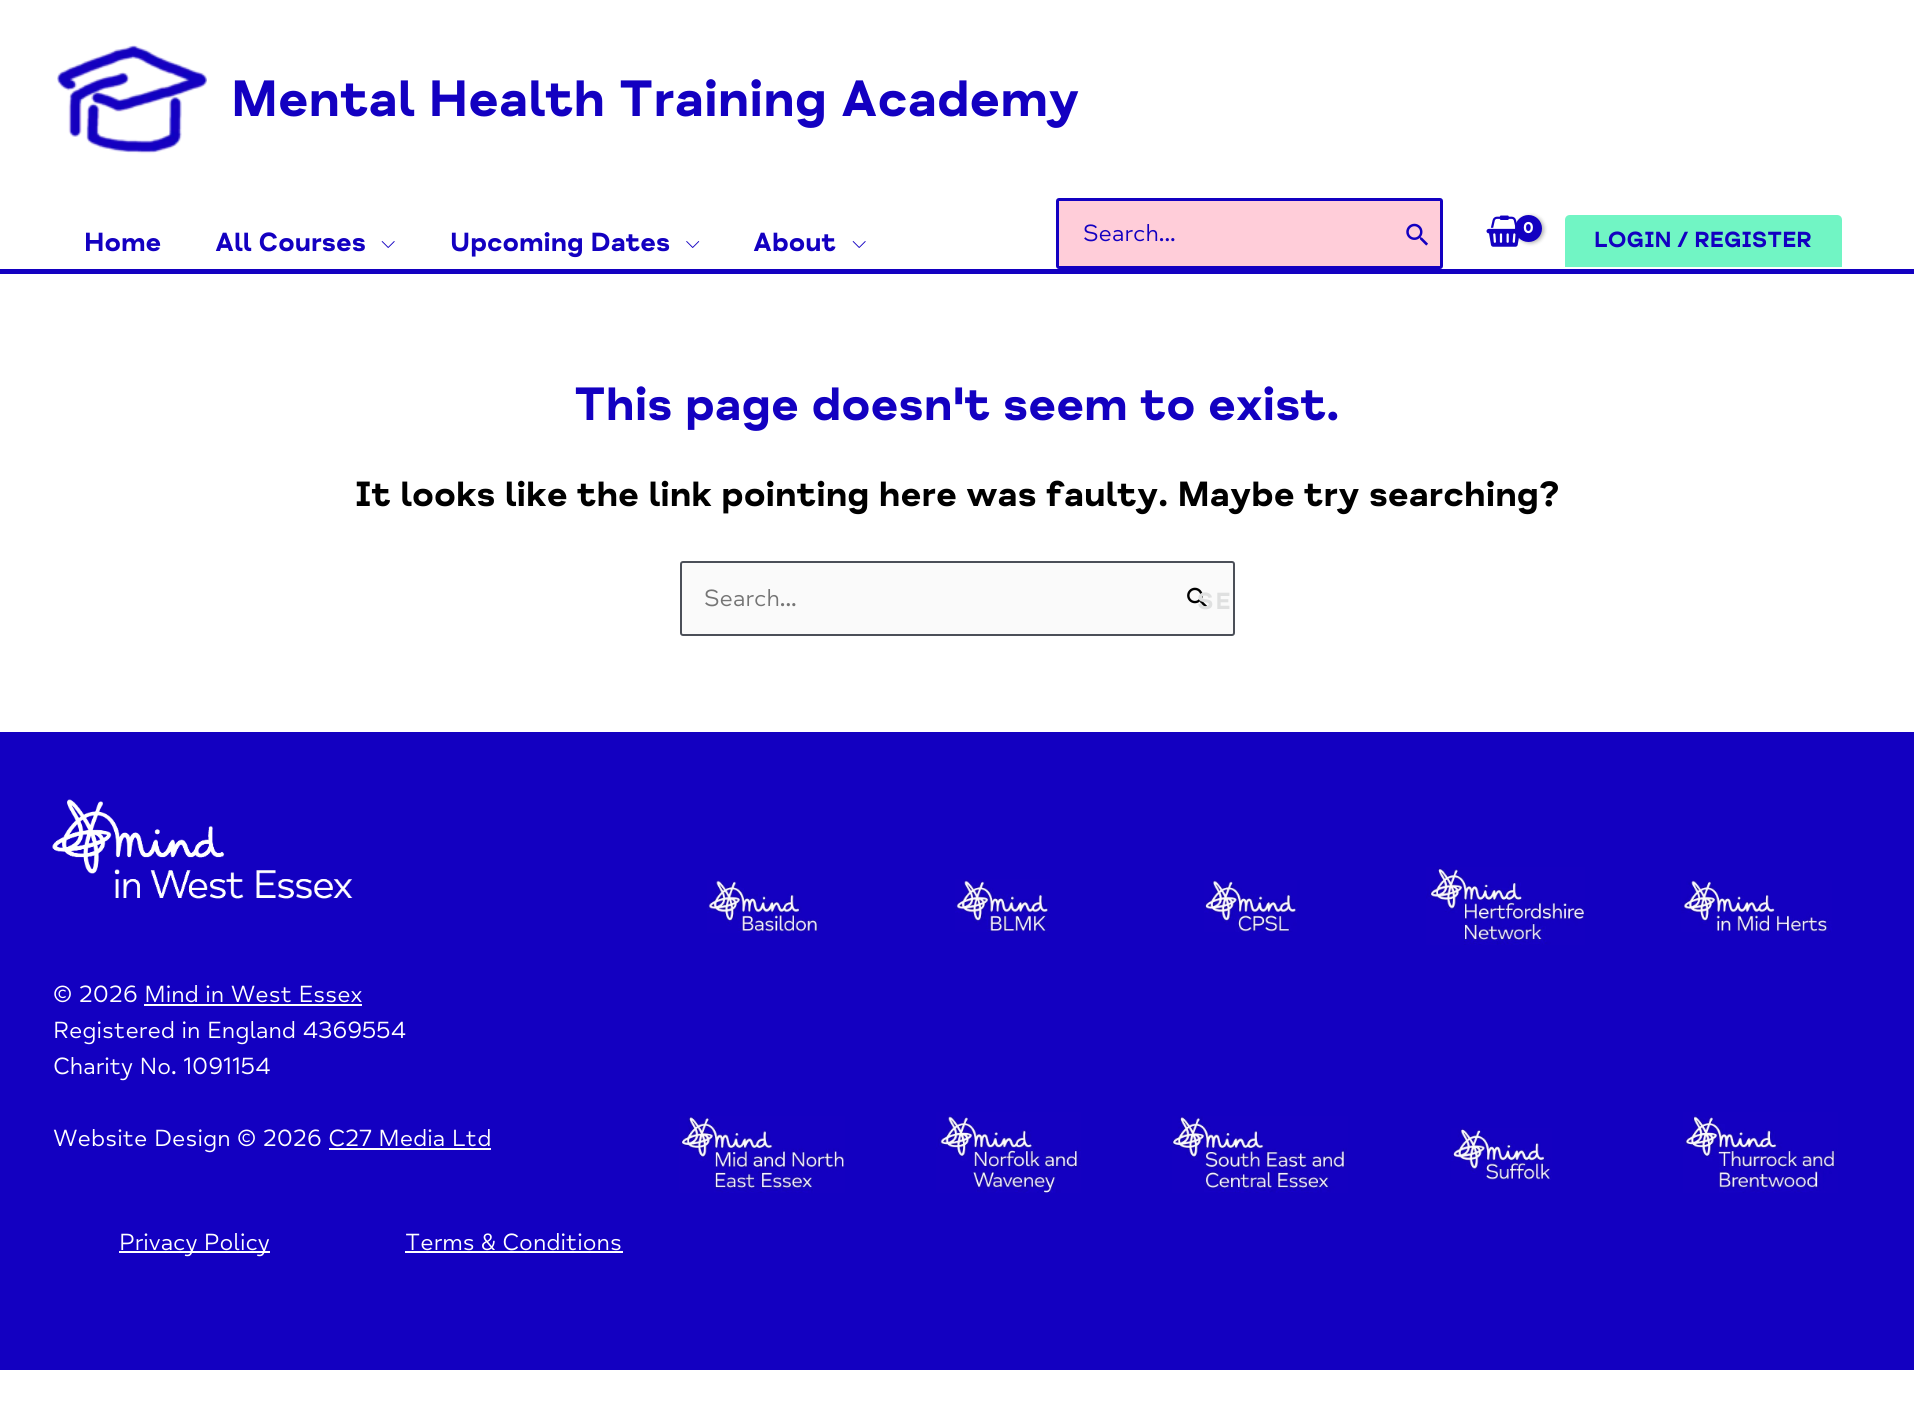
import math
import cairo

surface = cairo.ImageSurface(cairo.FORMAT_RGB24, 1914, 1418)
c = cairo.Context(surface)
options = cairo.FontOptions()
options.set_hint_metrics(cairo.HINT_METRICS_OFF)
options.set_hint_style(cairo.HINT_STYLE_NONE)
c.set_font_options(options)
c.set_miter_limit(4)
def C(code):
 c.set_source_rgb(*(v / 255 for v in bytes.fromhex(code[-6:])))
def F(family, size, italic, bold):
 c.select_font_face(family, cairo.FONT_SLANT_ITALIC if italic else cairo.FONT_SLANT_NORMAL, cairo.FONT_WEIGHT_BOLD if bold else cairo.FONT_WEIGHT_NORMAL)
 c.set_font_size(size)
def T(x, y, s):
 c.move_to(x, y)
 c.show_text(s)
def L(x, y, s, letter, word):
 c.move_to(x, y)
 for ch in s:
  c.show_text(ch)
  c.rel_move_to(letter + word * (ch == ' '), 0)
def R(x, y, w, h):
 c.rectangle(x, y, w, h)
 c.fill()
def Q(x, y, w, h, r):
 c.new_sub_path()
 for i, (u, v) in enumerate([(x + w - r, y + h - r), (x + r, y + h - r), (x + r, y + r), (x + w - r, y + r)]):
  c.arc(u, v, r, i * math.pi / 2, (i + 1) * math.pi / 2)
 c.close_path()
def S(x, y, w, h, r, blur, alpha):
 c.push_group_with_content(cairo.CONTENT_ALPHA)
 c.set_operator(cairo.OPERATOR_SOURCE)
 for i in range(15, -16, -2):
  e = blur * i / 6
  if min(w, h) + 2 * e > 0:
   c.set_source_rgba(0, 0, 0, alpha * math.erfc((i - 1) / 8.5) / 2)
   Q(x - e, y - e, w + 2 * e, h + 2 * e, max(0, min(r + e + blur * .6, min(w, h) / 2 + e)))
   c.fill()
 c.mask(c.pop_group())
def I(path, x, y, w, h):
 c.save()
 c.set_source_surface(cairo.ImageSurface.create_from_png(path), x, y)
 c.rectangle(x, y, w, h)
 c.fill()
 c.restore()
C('ffffff')
c.paint()
I('1.png',57,45,150,109)
F('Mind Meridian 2',52.5,0,0)
C('1300c1')
T(231,116,'Mental Health Training Academy')
R(0,269,1914,5)
F('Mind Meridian',27,0,1)
T(84,251,'Home')
T(215,251,'All Courses')
I('2.png',381,241,14,7)
T(450,251,'Upcoming Dates')
I('3.png',686,241,14,7)
T(753,251,'About')
I('2.png',852,241,14,7)
C('ffcdd9')
Q(1057.5,199.5,384,68,1.5)
c.fill_preserve()
C('1300c1')
c.set_line_width(3)
c.stroke()
F('Mind Meridian',24,0,0)
T(1083,241,'Search...')
I('4.png',1406,223,22,23)
I('5.png',1486,215,33,32)
C('000000')
S(1517,216,27,27,13.5,2,.3)
C('1300c1')
c.arc(1528.5,228.5,13.5,0,2 * math.pi)
c.fill()
F('Mind Meridian',16,0,1)
C('ffffff')
L(1523,233,'0',-1,0)
C('71f5c4')
c.new_path()
c.move_to(1570,215)
c.line_to(1837,215)
c.curve_to(1840,215,1842,217,1842,220)
c.line_to(1842,267)
c.line_to(1565,267)
c.line_to(1565,220)
c.curve_to(1565,217,1567,215,1570,215)
c.close_path()
c.fill()
F('Mind Meridian',22.5,0,1)
C('1300c1')
T(1594,247,'LOGIN / REGISTER')
F('Mind Meridian',48,0,1)
T(574,420,'This page doesn\'t seem to exist.')
F('Mind Meridian',36,0,1)
C('000000')
T(355,506,'It looks like the link pointing here was faulty. Maybe try searching?')
C('fafafa')
Q(681,562,553,73,2)
c.fill_preserve()
C('4b4f58')
c.set_line_width(2)
c.stroke()
F('Mind Meridian',24,0,0)
C('757575')
T(704,606,'Search...')
I('6.png',1187,587,21,22)
F('Mind Meridian',24,0,1)
C('dfe0e0')
L(1197,609,'SE',2,0)
C('1300c1')
R(0,732,1914,638)
I('7.png',52,799,301,100)
F('Mind Meridian',24,0,0)
C('ffffff')
T(53,1002,'© 2026 Mind in West Essex')
R(144,1004,218,2)
T(53,1038,'Registered in England 4369554')
T(53,1074,'Charity No. 1091154')
T(53,1146,'Website Design © 2026 C27 Media Ltd')
R(329,1148,162,2)
R(119,1251,151,2)
T(119,1250,'Privacy Policy')
T(405,1250,'Terms & Conditions')
R(405,1251,218,2)
I('8.png',707,880,113,53)
I('9.png',679,1116,166,77)
I('10.png',955,879,95,53)
I('11.png',936,1112,145,81)
I('12.png',1204,880,93,52)
I('13.png',1172,1116,176,77)
I('14.png',1426,867,159,78)
I('15.png',1451,1128,101,52)
I('16.png',1681,880,151,52)
I('17.png',1683,1112,155,81)
surface.write_to_png('o.png')
